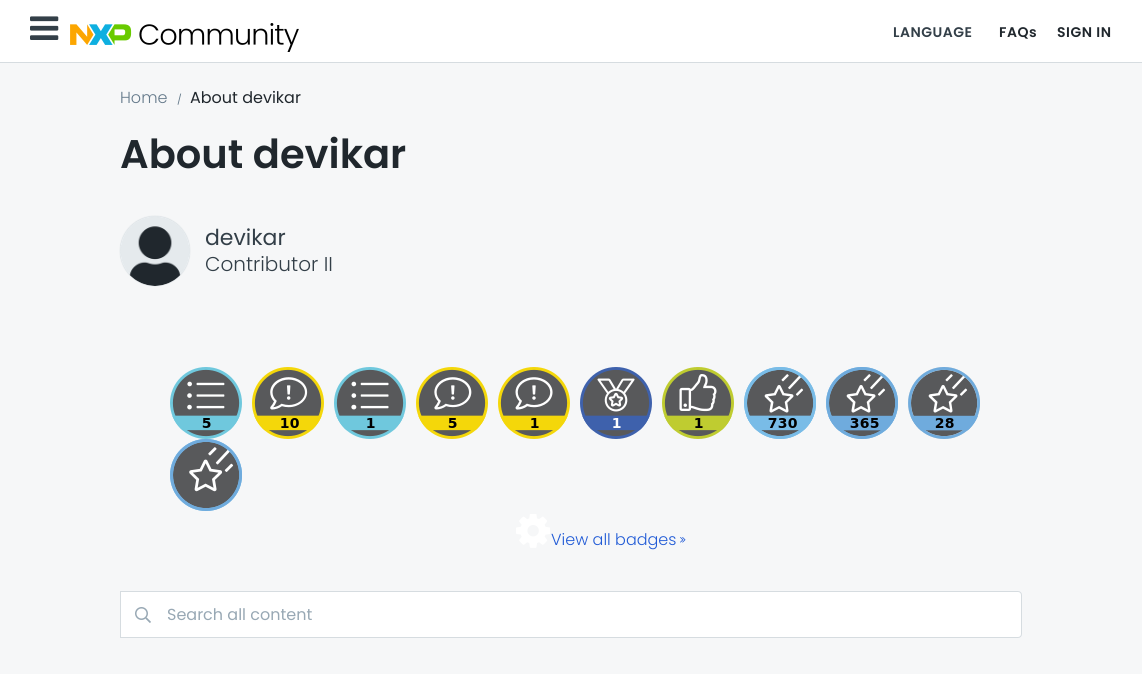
import math
import cairo

surface = cairo.ImageSurface(cairo.FORMAT_RGB24, 1142, 693)
c = cairo.Context(surface)
options = cairo.FontOptions()
options.set_hint_metrics(cairo.HINT_METRICS_OFF)
options.set_hint_style(cairo.HINT_STYLE_NONE)
c.set_font_options(options)
c.set_miter_limit(4)
def C(code):
 c.set_source_rgb(*(v / 255 for v in bytes.fromhex(code[-6:])))
def F(family, size, italic, bold):
 c.select_font_face(family, cairo.FONT_SLANT_ITALIC if italic else cairo.FONT_SLANT_NORMAL, cairo.FONT_WEIGHT_BOLD if bold else cairo.FONT_WEIGHT_NORMAL)
 c.set_font_size(size)
def T(x, y, s):
 c.move_to(x, y)
 c.show_text(s)
def L(x, y, s, letter, word):
 c.move_to(x, y)
 for ch in s:
  c.show_text(ch)
  c.rel_move_to(letter + word * (ch == ' '), 0)
def R(x, y, w, h):
 c.rectangle(x, y, w, h)
 c.fill()
def Q(x, y, w, h, r):
 c.new_sub_path()
 for i, (u, v) in enumerate([(x + w - r, y + h - r), (x + r, y + h - r), (x + r, y + r), (x + w - r, y + r)]):
  c.arc(u, v, r, i * math.pi / 2, (i + 1) * math.pi / 2)
 c.close_path()
def S(x, y, w, h, r, blur, alpha):
 c.push_group_with_content(cairo.CONTENT_ALPHA)
 c.set_operator(cairo.OPERATOR_SOURCE)
 for i in range(15, -16, -2):
  e = blur * i / 6
  if min(w, h) + 2 * e > 0:
   c.set_source_rgba(0, 0, 0, alpha * math.erfc((i - 1) / 8.5) / 2)
   Q(x - e, y - e, w + 2 * e, h + 2 * e, max(0, min(r + e + blur * .6, min(w, h) / 2 + e)))
   c.fill()
 c.mask(c.pop_group())
def I(path, x, y, w, h):
 c.save()
 c.set_source_surface(cairo.ImageSurface.create_from_png(path), x, y)
 c.rectangle(x, y, w, h)
 c.fill()
 c.restore()
C('ffffff')
c.paint()
C('d6dce0')
R(0,62,1142,1)
I('1.png',30,16,29,24)
I('2.png',70,23,229,29)
F('Poppins SemiBold',14,0,0)
C('333f48')
L(893,37,'LANGUAGE',.5,0)
C('20272d')
L(999,37,'FAQs',.5,0)
L(1057,37,'SIGN IN',.5,0)
C('f6f7f8')
R(0,63,1142,611)
F('Poppins Light',16,0,0)
C('64798a')
T(120,103,'Home')
F('Poppins',10,0,0)
T(177,103,'/')
F('Poppins',16,0,0)
C('20272d')
T(190,103,'About devikar')
F('Poppins SemiBold',40,0,0)
T(120,168,'About devikar')
C('d6dce0')
S(120,216,70,70,35,.5,1)
I('3.png',120,216,70,70)
F('Poppins',22,0,0)
C('333f48')
T(205,245,'devikar')
F('Poppins Light',20,0,0)
T(205,271,'Contributor II')
I('4.png',170,367,72,72)
I('5.png',252,367,72,72)
I('6.png',334,367,72,72)
I('7.png',416,367,72,72)
I('8.png',498,367,72,72)
I('9.png',580,367,72,72)
I('10.png',662,367,72,72)
I('11.png',744,367,72,72)
I('12.png',826,367,72,72)
I('13.png',908,367,72,72)
I('14.png',170,439,72,72)
I('15.png',516,514,34,34)
F('Poppins Light',16,0,0)
C('215bd6')
T(551,545,'View all badges')
I('16.png',680,537,6,6)
C('ffffff')
c.new_path()
c.move_to(120.5,591.5)
c.line_to(1018,591.5)
c.curve_to(1020,591.5,1021.5,593,1021.5,595)
c.line_to(1021.5,634)
c.curve_to(1021.5,636,1020,637.5,1018,637.5)
c.line_to(120.5,637.5)
c.close_path()
c.fill_preserve()
C('d6dce0')
c.set_line_width(1)
c.stroke()
I('17.png',135,607,16,16)
F('Poppins',16,0,0)
C('98a8b4')
T(167,620,'Search all content')
surface.write_to_png('o.png')
